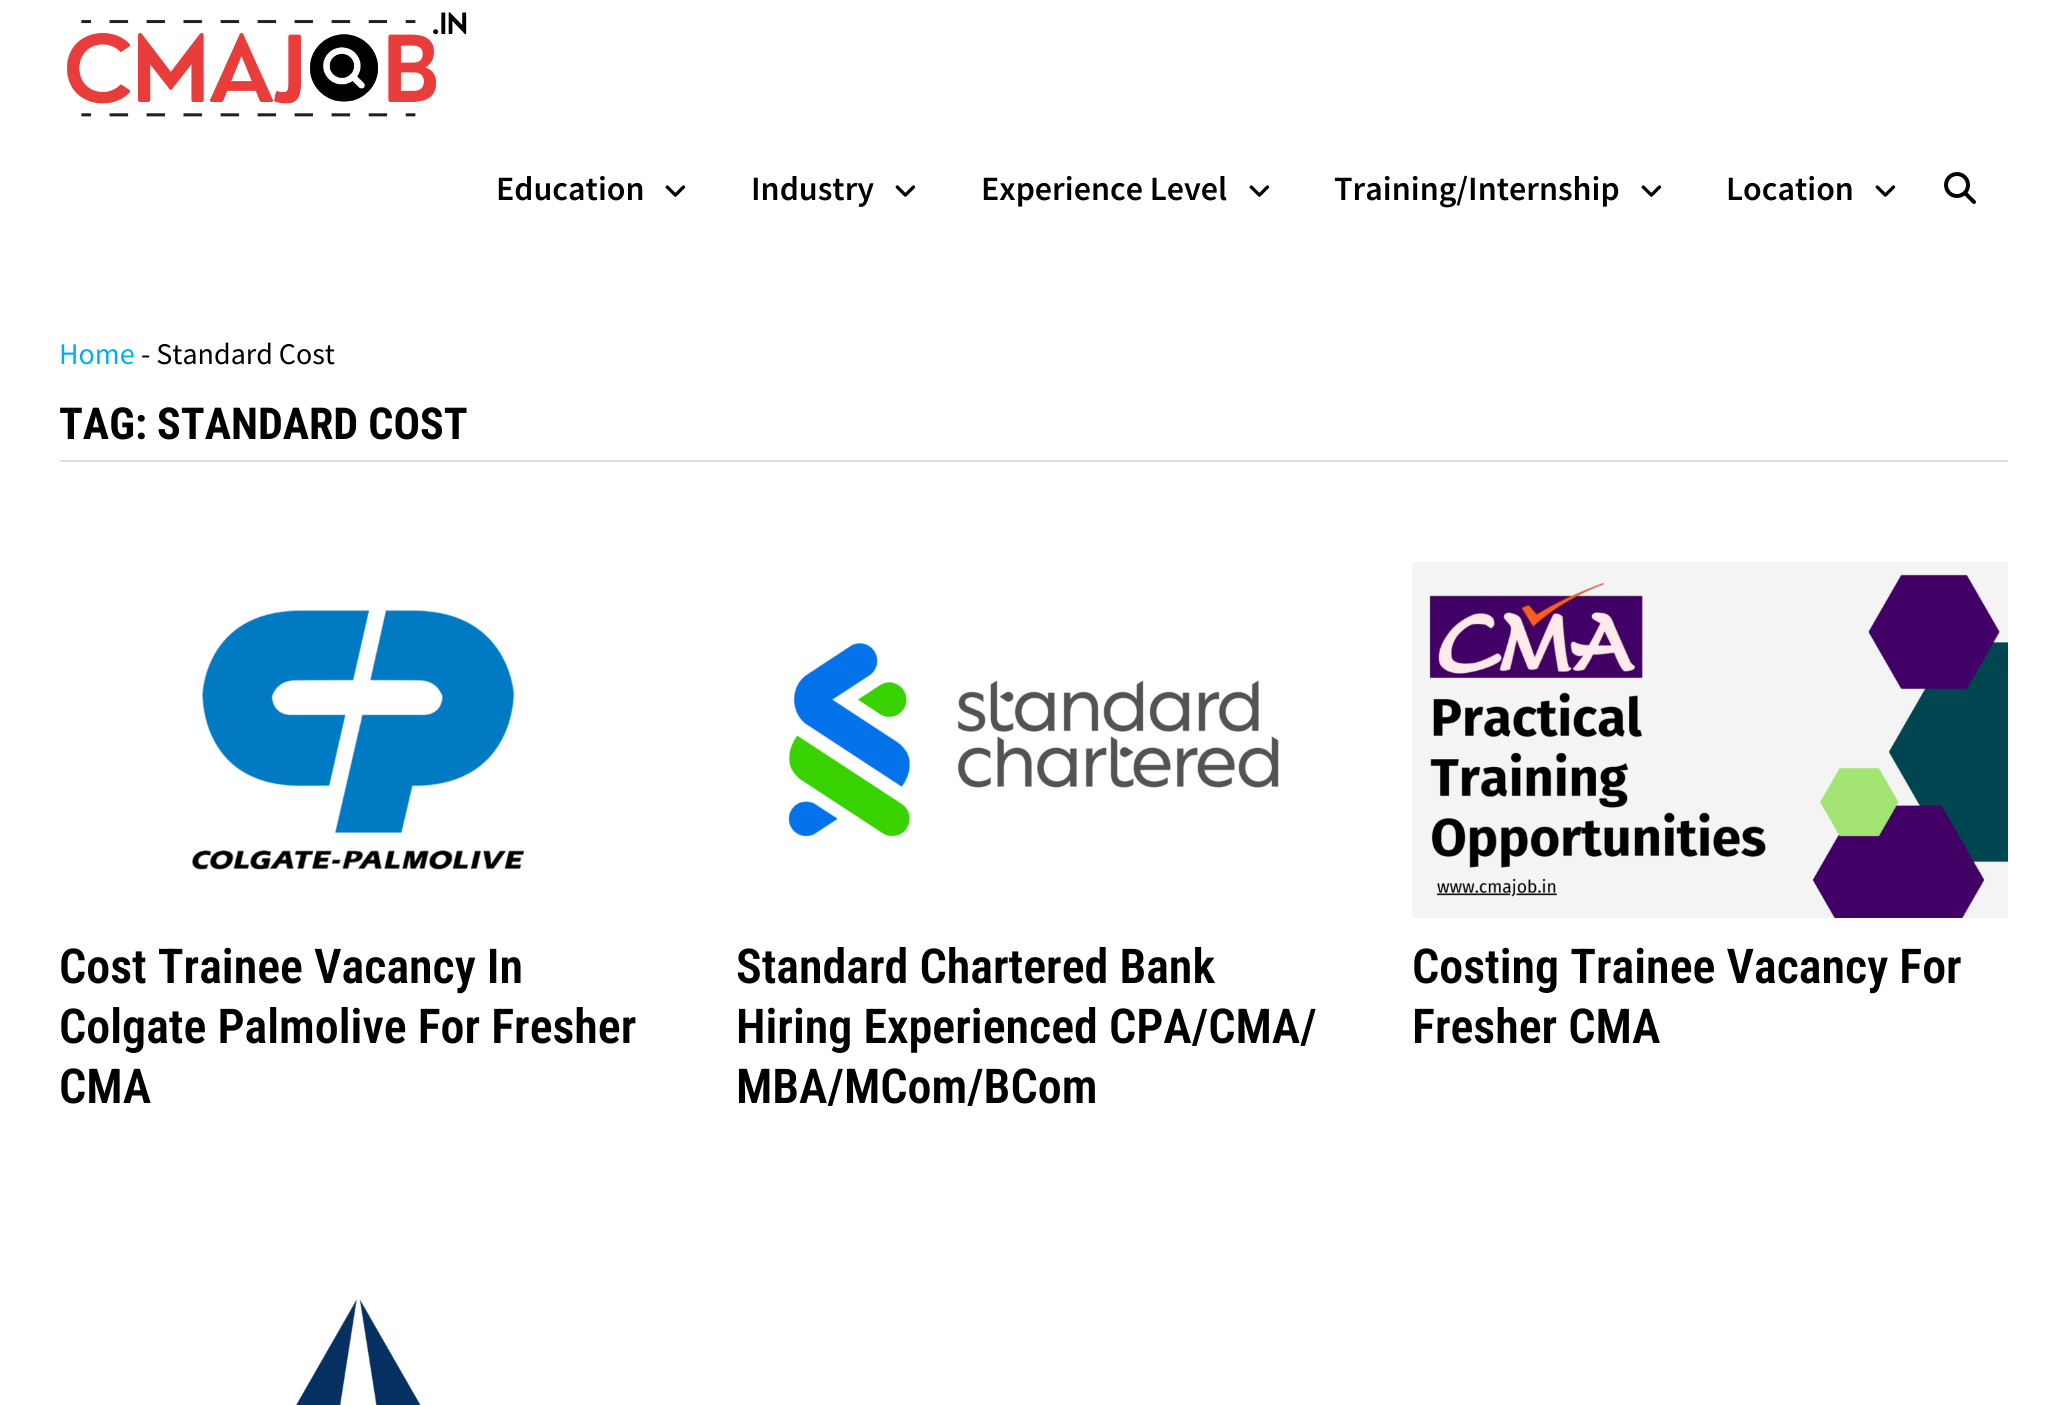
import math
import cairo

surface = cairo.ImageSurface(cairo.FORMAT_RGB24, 2067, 1405)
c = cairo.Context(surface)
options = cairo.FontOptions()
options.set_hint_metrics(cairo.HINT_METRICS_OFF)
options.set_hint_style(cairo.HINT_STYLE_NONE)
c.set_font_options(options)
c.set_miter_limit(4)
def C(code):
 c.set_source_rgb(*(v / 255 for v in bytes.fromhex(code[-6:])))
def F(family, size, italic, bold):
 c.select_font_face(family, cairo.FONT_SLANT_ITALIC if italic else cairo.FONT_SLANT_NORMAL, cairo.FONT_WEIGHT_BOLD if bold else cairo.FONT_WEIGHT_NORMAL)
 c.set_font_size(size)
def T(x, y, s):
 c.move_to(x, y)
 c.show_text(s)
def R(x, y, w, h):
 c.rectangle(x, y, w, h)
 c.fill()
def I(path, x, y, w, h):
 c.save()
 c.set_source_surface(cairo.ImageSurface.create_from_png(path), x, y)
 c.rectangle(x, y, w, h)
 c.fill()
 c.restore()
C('ffffff')
c.paint()
I('1.png',67,12,400,105)
F('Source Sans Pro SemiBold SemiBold',34,0,0)
C('000000')
T(496,200,'Education')
I('2.png',665,185,21,12)
T(751,200,'Industry')
I('2.png',895,185,21,12)
T(981,200,'Experience Level')
I('2.png',1249,185,21,12)
T(1334,200,'Training/Internship')
I('2.png',1641,185,21,12)
T(1726,200,'Location')
I('2.png',1875,185,21,12)
I('3.png',1944,172,32,32)
F('Source Sans Pro',30,0,0)
C('00aeef')
T(59,364,'Home')
C('000000')
T(141,364,'- Standard Cost')
C('dddddd')
R(60,460,1948,2)
F('Roboto Condensed',44,0,1)
C('000000')
T(59,439,'TAG: STANDARD COST')
I('4.png',192,609,332,261)
F('Roboto Condensed SemiBold',48,0,0)
T(59,983,'Cost Trainee Vacancy In')
T(59,1043,'Colgate Palmolive For Fresher')
T(59,1103,'CMA')
I('5.png',788,642,491,195)
T(736,983,'Standard Chartered Bank')
T(736,1043,'Hiring Experienced CPA/CMA/')
T(736,1103,'MBA/MCom/BCom')
I('6.png',1412,562,596,356)
T(1412,983,'Costing Trainee Vacancy For')
T(1412,1043,'Fresher CMA')
I('7.png',296,1299,125,106)
surface.write_to_png('o.png')
